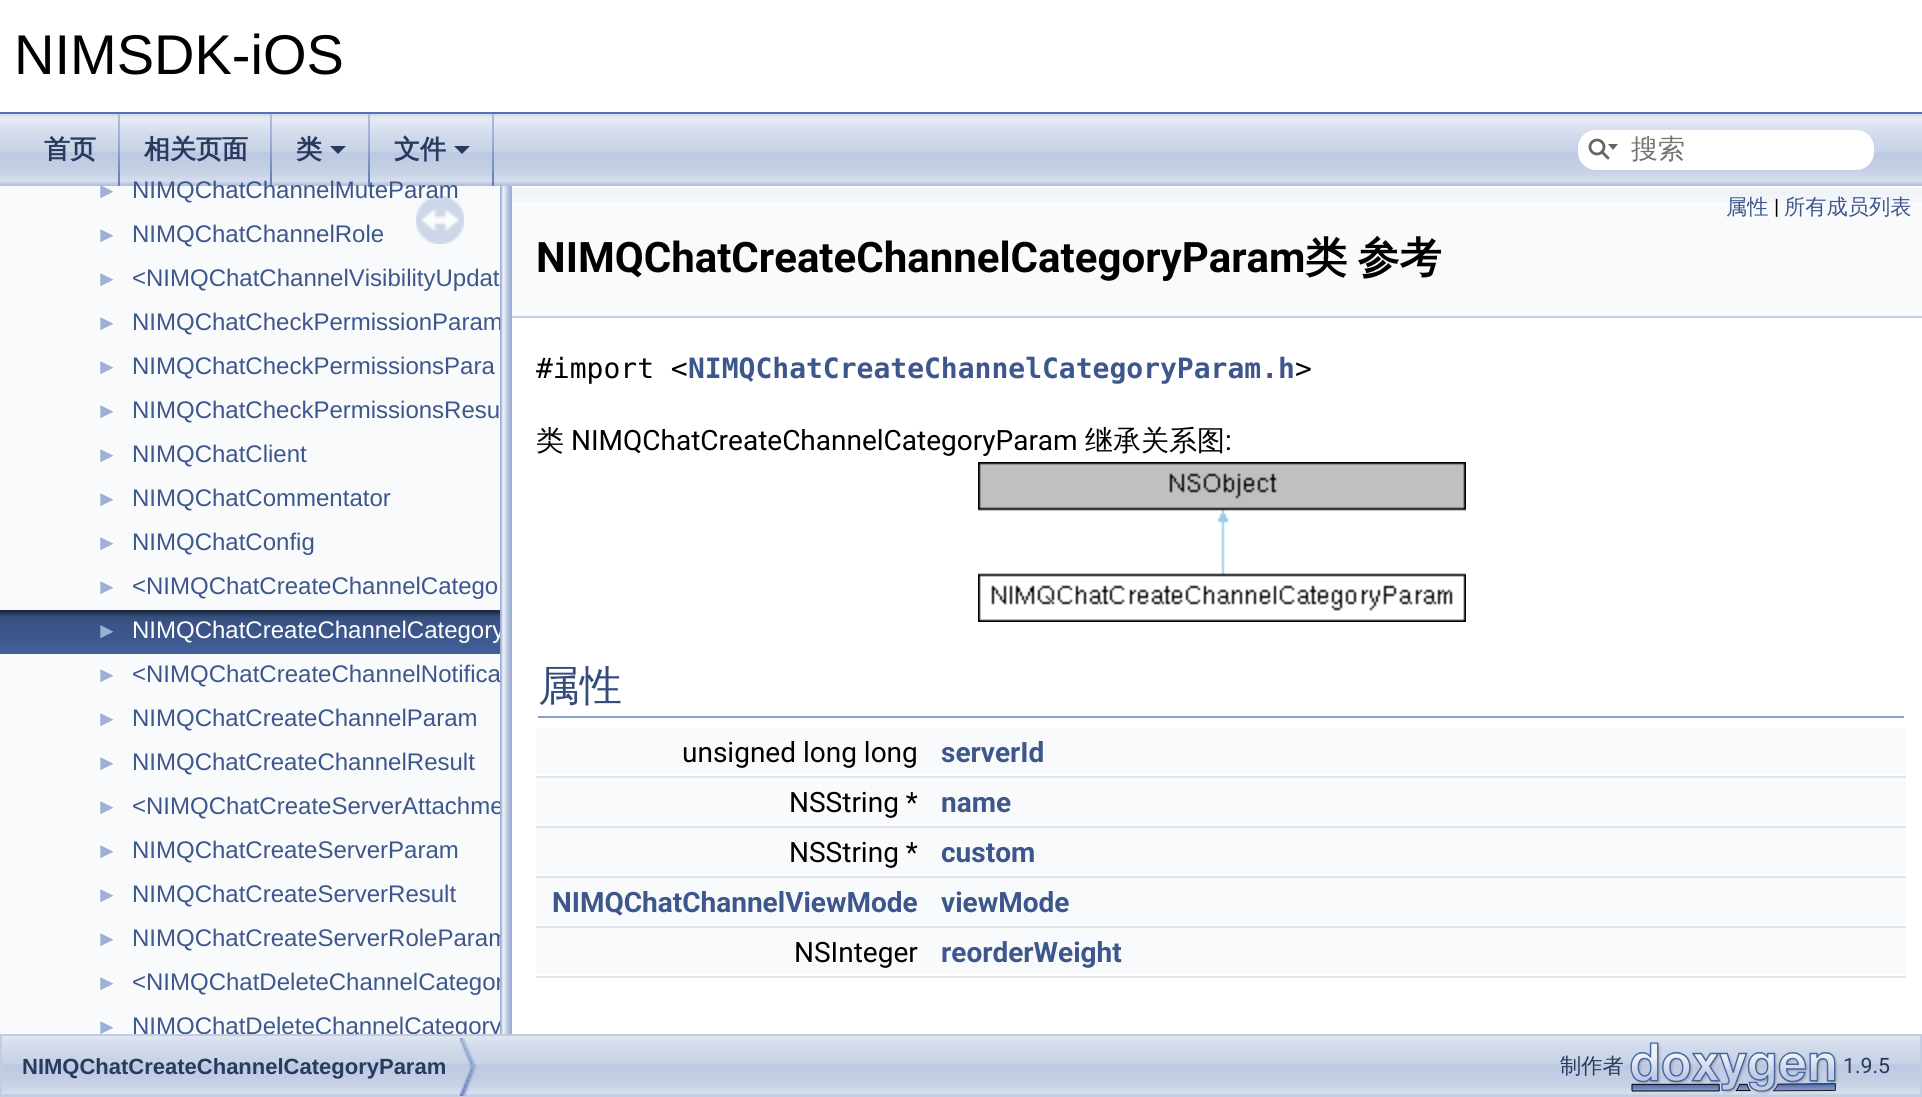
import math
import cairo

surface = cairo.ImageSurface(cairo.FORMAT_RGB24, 1922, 1097)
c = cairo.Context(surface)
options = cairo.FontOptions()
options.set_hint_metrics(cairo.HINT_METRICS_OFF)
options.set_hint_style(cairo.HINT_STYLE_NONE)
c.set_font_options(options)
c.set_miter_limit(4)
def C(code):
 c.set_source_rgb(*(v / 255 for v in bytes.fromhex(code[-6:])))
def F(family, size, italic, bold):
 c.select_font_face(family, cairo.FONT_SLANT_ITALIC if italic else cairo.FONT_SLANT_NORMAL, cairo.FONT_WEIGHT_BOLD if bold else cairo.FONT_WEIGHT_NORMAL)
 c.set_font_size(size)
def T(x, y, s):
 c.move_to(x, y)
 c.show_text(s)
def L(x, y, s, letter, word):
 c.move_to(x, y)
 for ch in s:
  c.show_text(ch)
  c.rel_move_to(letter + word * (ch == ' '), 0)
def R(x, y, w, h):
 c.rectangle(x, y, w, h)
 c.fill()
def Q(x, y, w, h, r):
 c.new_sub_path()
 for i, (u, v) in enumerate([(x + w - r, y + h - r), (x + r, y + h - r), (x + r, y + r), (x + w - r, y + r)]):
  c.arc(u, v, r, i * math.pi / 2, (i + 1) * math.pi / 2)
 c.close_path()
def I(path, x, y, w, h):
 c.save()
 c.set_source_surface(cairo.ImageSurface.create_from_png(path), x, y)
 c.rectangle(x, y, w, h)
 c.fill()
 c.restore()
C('ffffff')
c.paint()
C('5373b4')
R(0,112,1922,2)
F('Liberation Sans',56,0,0)
C('000000')
T(14,74,'NIMSDK-iOS')
I('1.png',0,114,1922,72)
I('2.png',118,114,2,72)
F('WenQuanYi Zen Hei',26,0,1)
C('283a5d')
T(44,158,'首页')
I('2.png',270,114,2,72)
T(144,158,'相关页面')
I('2.png',368,114,2,72)
T(296,158,'类')
c.new_path()
c.move_to(330,146)
c.line_to(346,146)
c.line_to(338,154)
c.close_path()
c.fill()
I('2.png',492,114,2,72)
T(394,158,'文件')
c.new_path()
c.move_to(454,146)
c.line_to(470,146)
c.line_to(462,154)
c.close_path()
c.fill()
C('ffffff')
Q(1578,130,296,40,18)
c.fill()
c.arc(1597,147,7,0,2 * math.pi)
C('656565')
c.set_line_width(2.8)
c.stroke()
c.new_path()
c.move_to(1608,144)
c.line_to(1613,150)
c.line_to(1618,144)
c.close_path()
c.fill()
c.new_path()
c.move_to(1602,152)
c.line_to(1608,158)
c.set_line_cap(cairo.LINE_CAP_ROUND)
c.stroke()
F('WenQuanYi Zen Hei Medium',27,0,0)
C('757575')
T(1631,158,'搜索')
C('f9fafc')
R(0,186,500,848)
F('Liberation Sans',22,0,0)
C('9cafd4')
T(96,198,'►')
F('Liberation Sans',24,0,0)
C('3d578c')
T(132,198,'NIMQChatChannelMuteParam')
F('Liberation Sans',22,0,0)
C('9cafd4')
T(96,242,'►')
F('Liberation Sans',24,0,0)
C('3d578c')
T(132,242,'NIMQChatChannelRole')
F('Liberation Sans',22,0,0)
C('9cafd4')
T(96,286,'►')
F('Liberation Sans',24,0,0)
C('3d578c')
T(132,286,'<NIMQChatChannelVisibilityUpdat')
F('Liberation Sans',22,0,0)
C('9cafd4')
T(96,330,'►')
F('Liberation Sans',24,0,0)
C('3d578c')
T(132,330,'NIMQChatCheckPermissionParam')
F('Liberation Sans',22,0,0)
C('9cafd4')
T(96,374,'►')
F('Liberation Sans',24,0,0)
C('3d578c')
T(132,374,'NIMQChatCheckPermissionsPara')
F('Liberation Sans',22,0,0)
C('9cafd4')
T(96,418,'►')
F('Liberation Sans',24,0,0)
C('3d578c')
T(132,418,'NIMQChatCheckPermissionsResu')
F('Liberation Sans',22,0,0)
C('9cafd4')
T(96,462,'►')
F('Liberation Sans',24,0,0)
C('3d578c')
T(132,462,'NIMQChatClient')
F('Liberation Sans',22,0,0)
C('9cafd4')
T(96,506,'►')
F('Liberation Sans',24,0,0)
C('3d578c')
T(132,506,'NIMQChatCommentator')
F('Liberation Sans',22,0,0)
C('9cafd4')
T(96,550,'►')
F('Liberation Sans',24,0,0)
C('3d578c')
T(132,550,'NIMQChatConfig')
F('Liberation Sans',22,0,0)
C('9cafd4')
T(96,594,'►')
F('Liberation Sans',24,0,0)
C('3d578c')
T(132,594,'<NIMQChatCreateChannelCatego')
I('3.png',0,610,500,44)
F('Liberation Sans',22,0,0)
C('9cafd4')
T(96,638,'►')
F('Liberation Sans',24,0,0)
C('ffffff')
T(132,638,'NIMQChatCreateChannelCategory')
F('Liberation Sans',22,0,0)
C('9cafd4')
T(96,682,'►')
F('Liberation Sans',24,0,0)
C('3d578c')
T(132,682,'<NIMQChatCreateChannelNotifica')
F('Liberation Sans',22,0,0)
C('9cafd4')
T(96,726,'►')
F('Liberation Sans',24,0,0)
C('3d578c')
T(132,726,'NIMQChatCreateChannelParam')
F('Liberation Sans',22,0,0)
C('9cafd4')
T(96,770,'►')
F('Liberation Sans',24,0,0)
C('3d578c')
T(132,770,'NIMQChatCreateChannelResult')
F('Liberation Sans',22,0,0)
C('9cafd4')
T(96,814,'►')
F('Liberation Sans',24,0,0)
C('3d578c')
T(132,814,'<NIMQChatCreateServerAttachme')
F('Liberation Sans',22,0,0)
C('9cafd4')
T(96,858,'►')
F('Liberation Sans',24,0,0)
C('3d578c')
T(132,858,'NIMQChatCreateServerParam')
F('Liberation Sans',22,0,0)
C('9cafd4')
T(96,902,'►')
F('Liberation Sans',24,0,0)
C('3d578c')
T(132,902,'NIMQChatCreateServerResult')
F('Liberation Sans',22,0,0)
C('9cafd4')
T(96,946,'►')
F('Liberation Sans',24,0,0)
C('3d578c')
T(132,946,'NIMQChatCreateServerRoleParam')
F('Liberation Sans',22,0,0)
C('9cafd4')
T(96,990,'►')
F('Liberation Sans',24,0,0)
C('3d578c')
T(132,990,'<NIMQChatDeleteChannelCategor')
F('Liberation Sans',22,0,0)
C('9cafd4')
T(96,1034,'►')
c.save()
c.rectangle(0,186,500,848)
c.clip()
F('Liberation Sans',24,0,0)
C('3d578c')
T(132,1034,'NIMQChatDeleteChannelCategory')
c.restore()
I('4.png',416,196,48,48)
I('5.png',500,186,12,848)
C('f9fafc')
R(512,202,1410,114)
I('6.png',512,186,1410,16)
C('c4cfe5')
R(512,316,1410,2)
F('WenQuanYi Zen Hei Medium',21.25,0,0)
C('3d578c')
T(1726,214,'属性')
F('Roboto',21.25,0,0)
C('000000')
T(1774,214,'|')
F('WenQuanYi Zen Hei Medium',21.25,0,0)
C('3d578c')
T(1784,214,'所有成员列表')
F('Roboto',42,0,1)
C('000000')
T(536,272,'NIMQChatCreateChannelCategoryParam')
F('WenQuanYi Zen Hei',42,0,1)
L(1305,272,'类 参考',0,-2)
F('DejaVu Sans Mono',28,0,0)
T(536,378,'#import <')
F('DejaVu Sans Mono',28,0,1)
C('3d578c')
T(688,378,'NIMQChatCreateChannelCategoryParam.h')
F('DejaVu Sans Mono',28,0,0)
C('000000')
T(1295,378,'>')
F('WenQuanYi Zen Hei Medium',28,0,0)
T(536,450,'类')
F('Roboto',28,0,0)
T(571,450,'NIMQChatCreateChannelCategoryParam')
F('WenQuanYi Zen Hei Medium',28,0,0)
T(1085,450,'继承关系图')
F('Roboto',28,0,0)
T(1225,450,':')
I('7.png',978,462,488,160)
C('879ecb')
R(538,716,1366,2)
F('WenQuanYi Zen Hei Medium',42,0,0)
C('354c7b')
T(538,700,'属性')
C('f9fafc')
R(536,728,1370,46)
F('Roboto',28,0,0)
C('000000')
T(682,762,'unsigned long long')
F('Roboto',28,0,1)
C('3d578c')
T(941,762,'serverId')
C('dee4f0')
R(536,776,1370,2)
C('f9fafc')
R(536,778,1370,46)
F('Roboto',28,0,0)
C('000000')
T(789,812,'NSString *')
F('Roboto',28,0,1)
C('3d578c')
T(941,812,'name')
C('dee4f0')
R(536,826,1370,2)
C('f9fafc')
R(536,828,1370,46)
F('Roboto',28,0,0)
C('000000')
T(789,862,'NSString *')
F('Roboto',28,0,1)
C('3d578c')
T(941,862,'custom')
C('dee4f0')
R(536,876,1370,2)
C('f9fafc')
R(536,878,1370,46)
C('3d578c')
T(552,912,'NIMQChatChannelViewMode')
T(941,912,'viewMode')
C('dee4f0')
R(536,926,1370,2)
C('f9fafc')
R(536,928,1370,46)
F('Roboto',28,0,0)
C('000000')
T(794,962,'NSInteger')
F('Roboto',28,0,1)
C('3d578c')
T(941,962,'reorderWeight')
C('dee4f0')
R(536,976,1370,2)
I('8.png',2,1036,1918,60)
c.rectangle(1,1035,1920,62)
C('c2cde4')
c.set_line_width(2)
c.set_line_cap(cairo.LINE_CAP_BUTT)
c.stroke()
I('9.png',460,1038,16,58)
F('Liberation Sans',22,0,1)
C('283a5d')
T(22,1074,'NIMQChatCreateChannelCategoryParam')
F('WenQuanYi Zen Hei Medium',21.25,0,0)
T(1560,1073,'制作者')
I('10.png',1630,1042,208,53)
F('Roboto',21.25,0,0)
T(1843,1073,'1.9.5')
surface.write_to_png('o.png')
